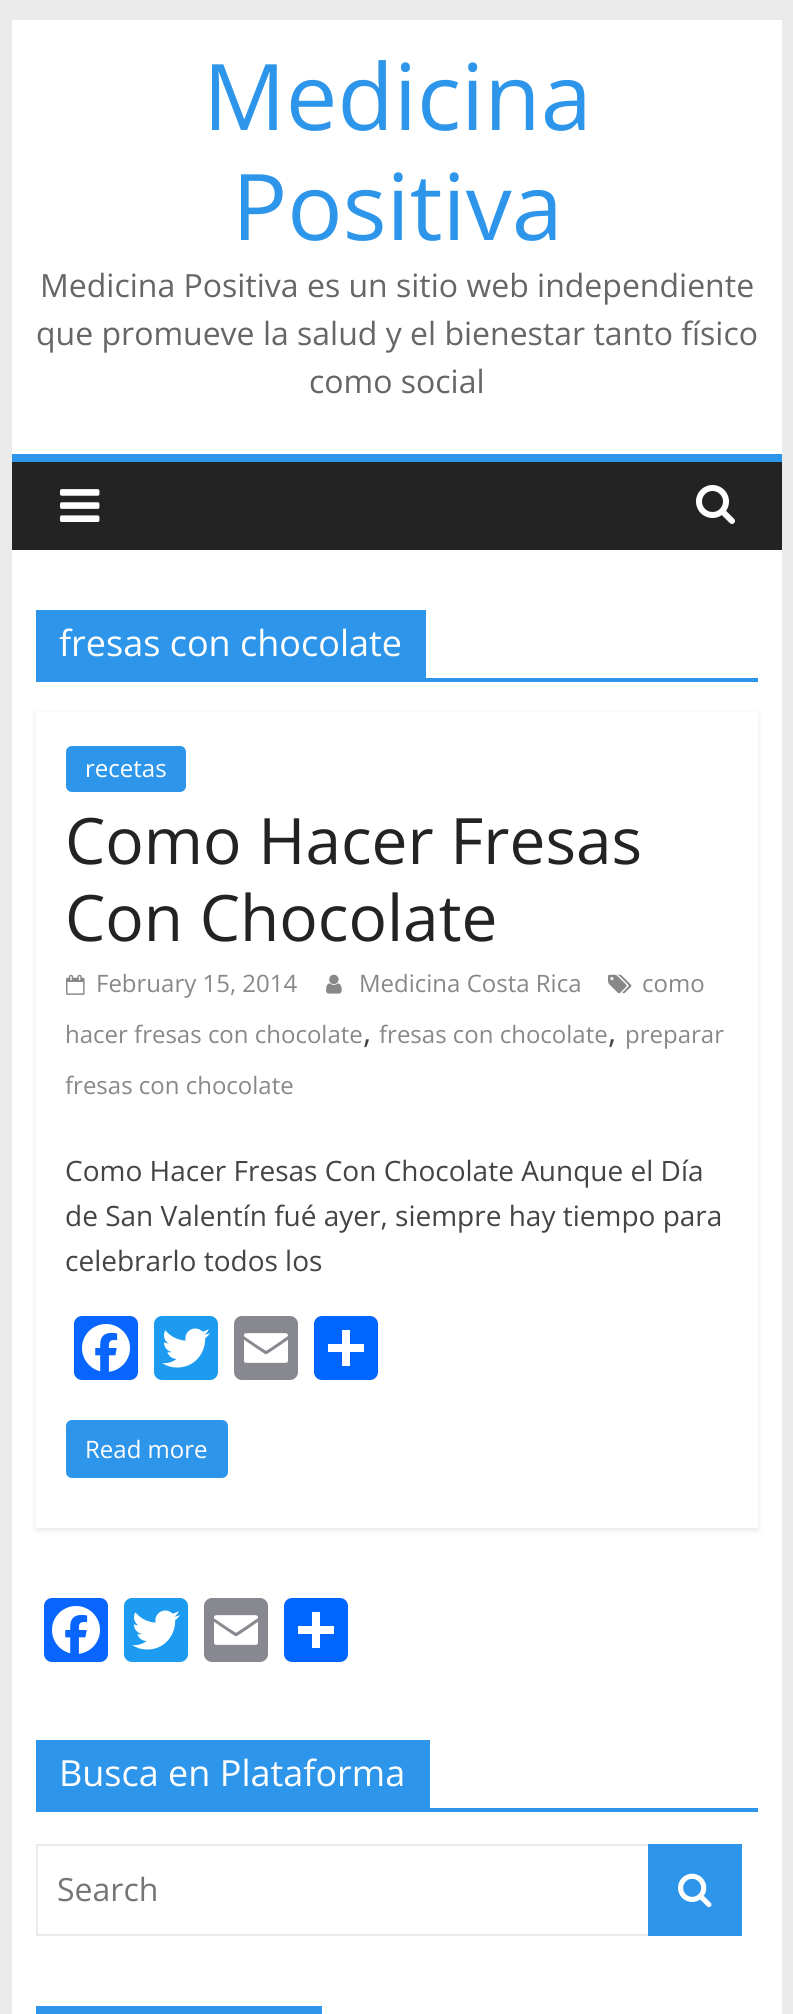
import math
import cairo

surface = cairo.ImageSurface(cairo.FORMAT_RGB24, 793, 2014)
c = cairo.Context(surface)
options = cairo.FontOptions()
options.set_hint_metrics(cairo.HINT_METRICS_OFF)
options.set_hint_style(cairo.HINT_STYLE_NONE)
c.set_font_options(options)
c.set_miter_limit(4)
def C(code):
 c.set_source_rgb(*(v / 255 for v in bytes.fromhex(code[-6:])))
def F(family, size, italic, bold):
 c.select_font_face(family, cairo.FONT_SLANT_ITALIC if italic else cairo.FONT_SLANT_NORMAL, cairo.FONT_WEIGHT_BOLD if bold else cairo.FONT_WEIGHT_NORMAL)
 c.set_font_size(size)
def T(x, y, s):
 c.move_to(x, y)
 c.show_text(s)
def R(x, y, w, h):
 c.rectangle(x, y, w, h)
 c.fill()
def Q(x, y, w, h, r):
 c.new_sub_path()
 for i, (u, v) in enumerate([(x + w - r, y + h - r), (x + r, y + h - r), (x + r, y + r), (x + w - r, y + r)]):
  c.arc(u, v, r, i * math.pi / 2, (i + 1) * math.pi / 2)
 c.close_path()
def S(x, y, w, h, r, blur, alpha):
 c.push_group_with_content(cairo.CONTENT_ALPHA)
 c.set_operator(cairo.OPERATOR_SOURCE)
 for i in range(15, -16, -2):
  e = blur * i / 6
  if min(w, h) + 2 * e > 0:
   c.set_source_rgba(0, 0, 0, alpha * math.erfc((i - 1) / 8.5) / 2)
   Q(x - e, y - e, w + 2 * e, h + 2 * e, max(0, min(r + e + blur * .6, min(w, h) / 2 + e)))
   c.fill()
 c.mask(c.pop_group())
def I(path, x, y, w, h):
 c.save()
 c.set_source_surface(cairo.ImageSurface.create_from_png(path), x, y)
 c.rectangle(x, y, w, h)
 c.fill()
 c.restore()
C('eaeaea')
c.paint()
C('ffffff')
R(12,20,770,434)
F('Open Sans',92,0,0)
C('2e96ea')
T(203,130,'Medicina')
T(232,240,'Positiva')
F('Open Sans',32,0,0)
C('666666')
T(40,297,'Medicina Positiva es un sitio web independiente')
T(36,345,'que promueve la salud y el bienestar tanto físico')
T(309,393,'como social')
C('232323')
R(12,462,770,88)
C('2e96ea')
R(12,454,770,8)
I('1.png',60,489,40,33)
I('2.png',696,485,39,39)
C('ffffff')
R(12,550,770,1464)
C('2e96ea')
R(36,678,722,4)
R(36,610,390,68)
F('Open Sans',36,0,0)
C('ffffff')
T(59,656,'fresas con chocolate')
c.save()
c.set_fill_rule(cairo.FILL_RULE_EVEN_ODD)
c.new_path()
c.move_to(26,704)
c.line_to(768,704)
c.line_to(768,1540)
c.line_to(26,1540)
c.close_path()
c.move_to(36,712)
c.line_to(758,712)
c.line_to(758,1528)
c.line_to(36,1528)
c.close_path()
c.clip()
C('000000')
S(36,714,722,816,0,3,.1)
c.restore()
C('2e96ea')
Q(66,746,120,46,6)
c.fill()
F('Open Sans',24,0,0)
C('ffffff')
T(85,777,'recetas')
F('Open Sans',64,0,0)
C('232323')
T(65,864,'Como Hacer Fresas')
T(65,941,'Con Chocolate')
I('3.png',66,974,19,21)
F('Open Sans',24,0,0)
C('888888')
T(96,992,'February 15, 2014')
I('4.png',326,974,16,20)
T(359,992,'Medicina Costa Rica')
I('5.png',608,974,24,20)
T(642,992,'como')
T(65,1043,'hacer fresas con chocolate')
F('Open Sans',32,0,0)
C('444444')
T(363,1043,',')
F('Open Sans',24,0,0)
C('888888')
T(379,1043,'fresas con chocolate')
F('Open Sans',32,0,0)
C('444444')
T(608,1043,',')
F('Open Sans',24,0,0)
C('888888')
T(625,1043,'preparar')
T(65,1094,'fresas con chocolate')
F('Open Sans',28,0,0)
C('444444')
T(65,1181,'Como Hacer Fresas Con Chocolate Aunque el Día')
T(65,1226,'de San Valentín fué ayer, siempre hay tiempo para')
T(65,1271,'celebrarlo todos los')
C('0866ff')
Q(74,1316,64,64,8)
c.fill()
I('6.png',82,1324,48,48)
C('1d9bf0')
Q(154,1316,64,64,8)
c.fill()
I('7.png',162,1328,48,40)
C('888990')
Q(234,1316,64,64,8)
c.fill()
I('8.png',244,1333,44,30)
C('0166ff')
Q(314,1316,64,64,8)
c.fill()
C('ffffff')
R(342,1330,8,36)
R(328,1344,36,8)
C('2e96ea')
Q(66,1420,162,58,6)
c.fill()
F('Open Sans',24,0,0)
C('ffffff')
T(85,1458,'Read more')
C('0866ff')
Q(44,1598,64,64,8)
c.fill()
I('6.png',52,1606,48,48)
C('1d9bf0')
Q(124,1598,64,64,8)
c.fill()
I('7.png',132,1610,48,40)
C('888990')
Q(204,1598,64,64,8)
c.fill()
I('8.png',214,1615,44,30)
C('0166ff')
Q(284,1598,64,64,8)
c.fill()
C('ffffff')
R(312,1612,8,36)
R(298,1626,36,8)
C('2e96ea')
R(36,1808,722,4)
R(36,1740,394,68)
F('Open Sans',36,0,0)
C('ffffff')
T(59,1786,'Busca en Plataforma')
c.rectangle(37,1845,612,90)
C('eaeaea')
c.stroke()
F('Open Sans',32,0,0)
C('757575')
T(57,1901,'Search')
C('2e96ea')
R(648,1844,94,92)
I('9.png',678,1873,34,35)
R(36,2006,286,8)
surface.write_to_png('o.png')
